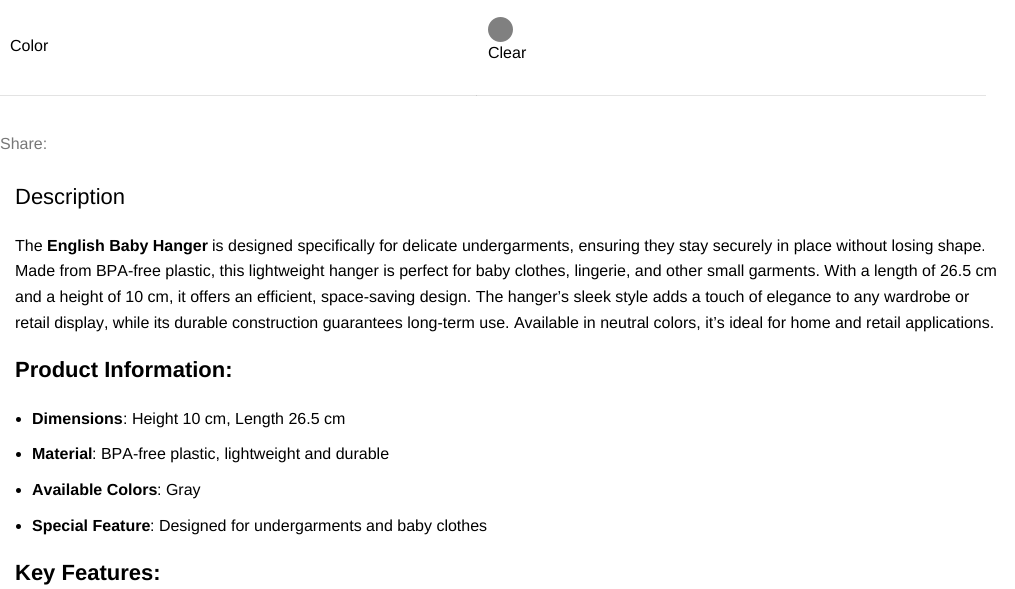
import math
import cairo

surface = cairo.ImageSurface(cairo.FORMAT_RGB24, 1015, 589)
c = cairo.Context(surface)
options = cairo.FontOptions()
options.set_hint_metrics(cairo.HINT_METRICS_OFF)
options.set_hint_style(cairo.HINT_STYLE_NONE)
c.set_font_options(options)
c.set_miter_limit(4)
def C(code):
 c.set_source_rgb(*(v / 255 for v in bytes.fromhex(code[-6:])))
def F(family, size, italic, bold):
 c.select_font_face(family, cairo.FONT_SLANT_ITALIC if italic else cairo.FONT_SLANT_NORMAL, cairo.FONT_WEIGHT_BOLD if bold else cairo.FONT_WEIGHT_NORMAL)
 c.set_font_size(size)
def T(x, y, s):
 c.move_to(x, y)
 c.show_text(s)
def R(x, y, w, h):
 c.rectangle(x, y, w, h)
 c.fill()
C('ffffff')
c.paint()
C('e3e3e3')
R(0,95,477,1)
F('Liberation Sans',16,0,0)
C('000000')
T(10,51,'Color')
C('e4e4e4')
R(476,95,510,1)
C('cbcbcb')
R(476,95,1,1)
C('808080')
c.new_path()
c.arc(500.5,29.5,12.5,0,2 * math.pi)
c.fill()
C('000000')
T(488,58,'Clear')
C('777777')
T(0,149,'Share:')
F('Liberation Sans',22,0,0)
C('000000')
T(15,204,'Description')
F('Liberation Sans',16,0,0)
T(15,251,'The')
F('Liberation Sans',16,0,1)
T(47,251,'English Baby Hanger')
F('Liberation Sans',16,0,0)
T(212,251,'is designed specifically for delicate undergarments, ensuring they stay securely in place without losing shape.')
T(15,276,'Made from BPA-free plastic, this lightweight hanger is perfect for baby clothes, lingerie, and other small garments. With a length of 26.5 cm')
T(15,302,'and a height of 10 cm, it offers an efficient, space-saving design. The hanger’s sleek style adds a touch of elegance to any wardrobe or')
T(15,328,'retail display, while its durable construction guarantees long-term use. Available in neutral colors, it’s ideal for home and retail applications.')
F('Liberation Sans',22,0,1)
T(15,377,'Product Information:')
c.new_path()
c.arc(18.5,419.5,2.5,0,2 * math.pi)
c.fill()
F('Liberation Sans',16,0,1)
T(32,424,'Dimensions')
F('Liberation Sans',16,0,0)
T(123,424,': Height 10 cm, Length 26.5 cm')
c.new_path()
c.arc(18.5,454.5,2.5,0,2 * math.pi)
c.fill()
F('Liberation Sans',16,0,1)
T(32,459,'Material')
F('Liberation Sans',16,0,0)
T(92,459,': BPA-free plastic, lightweight and durable')
c.new_path()
c.arc(18.5,490.5,2.5,0,2 * math.pi)
c.fill()
F('Liberation Sans',16,0,1)
T(32,495,'Available Colors')
F('Liberation Sans',16,0,0)
T(157,495,': Gray')
c.new_path()
c.arc(18.5,526.5,2.5,0,2 * math.pi)
c.fill()
F('Liberation Sans',16,0,1)
T(32,531,'Special Feature')
F('Liberation Sans',16,0,0)
T(150,531,': Designed for undergarments and baby clothes')
F('Liberation Sans',22,0,1)
T(15,580,'Key Features:')
surface.write_to_png('o.png')
